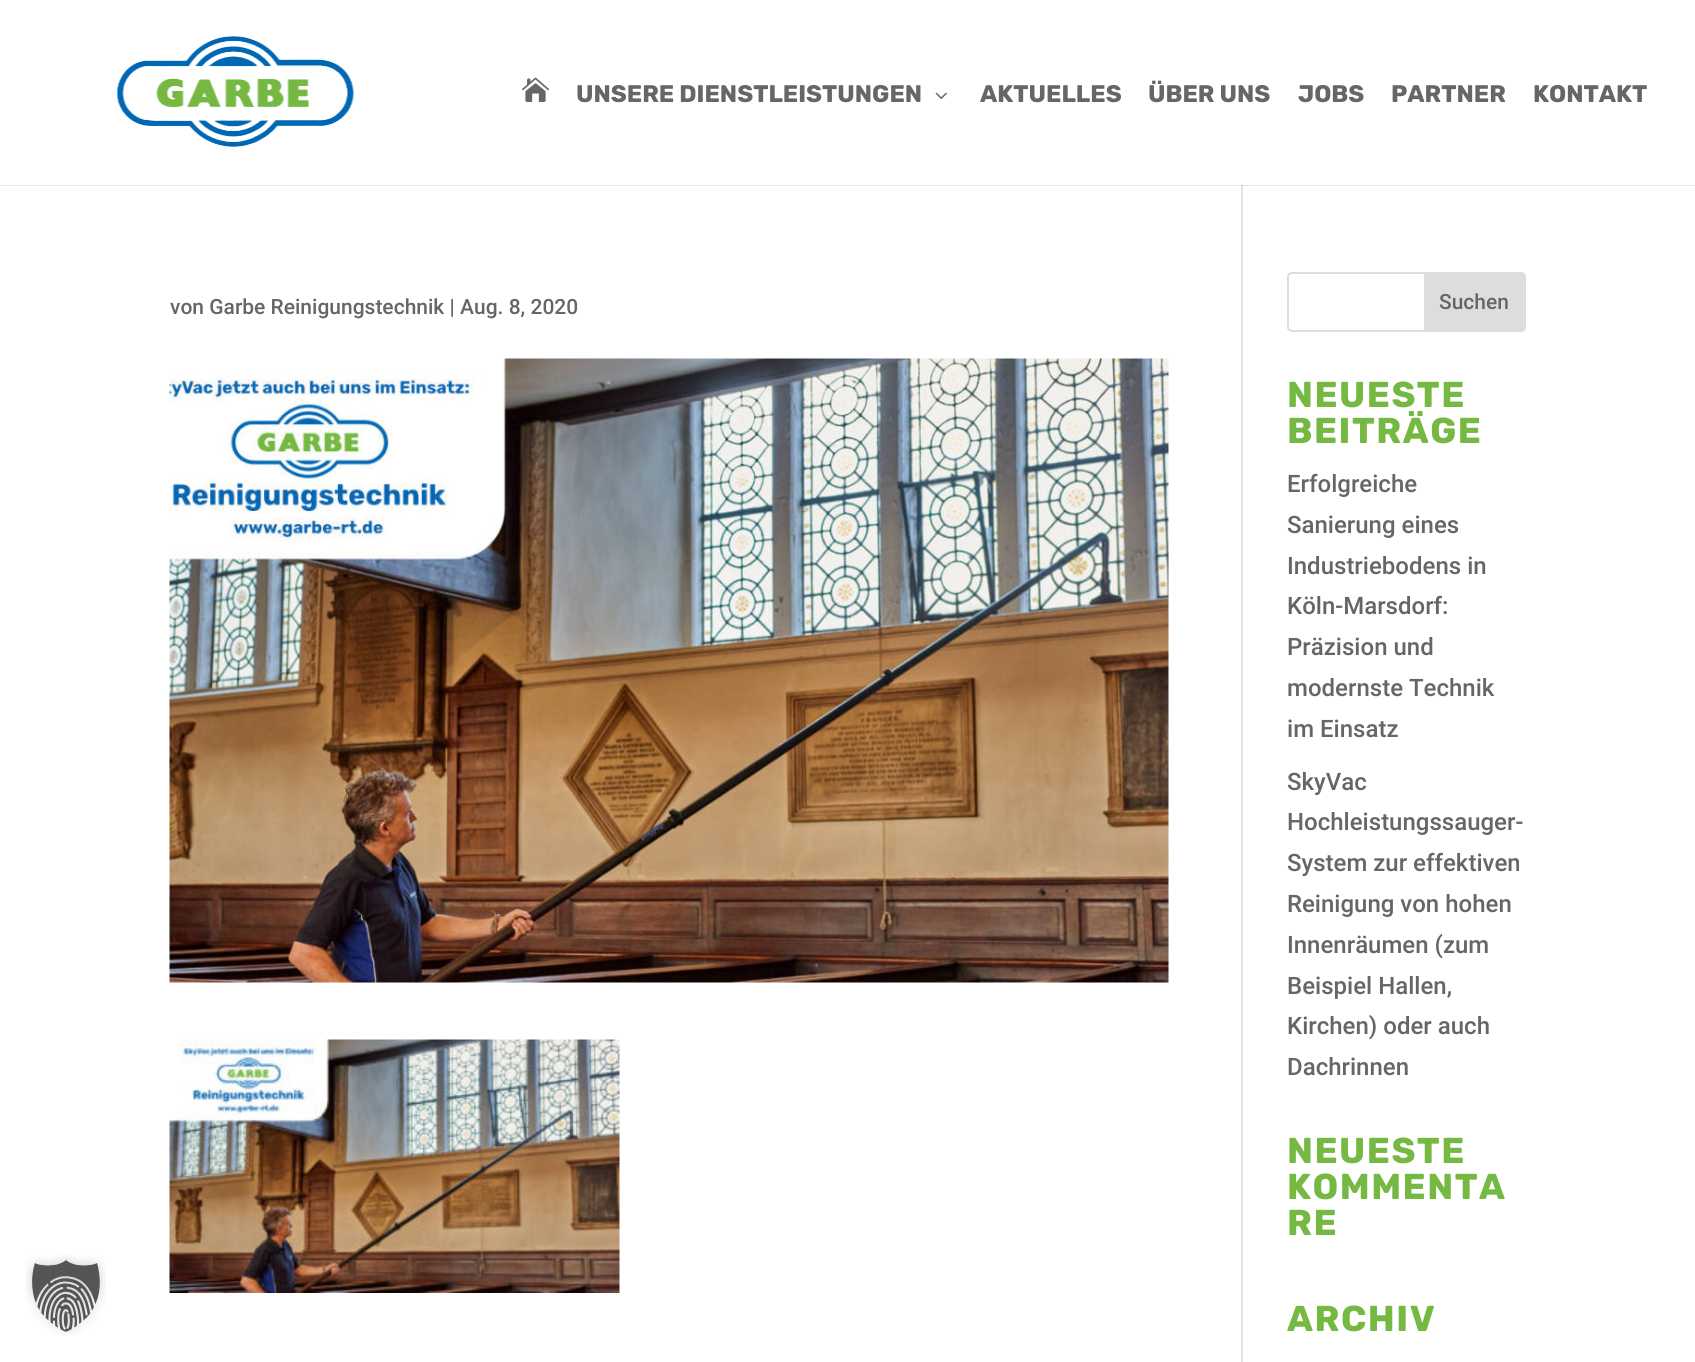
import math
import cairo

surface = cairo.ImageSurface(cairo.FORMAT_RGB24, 1695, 1362)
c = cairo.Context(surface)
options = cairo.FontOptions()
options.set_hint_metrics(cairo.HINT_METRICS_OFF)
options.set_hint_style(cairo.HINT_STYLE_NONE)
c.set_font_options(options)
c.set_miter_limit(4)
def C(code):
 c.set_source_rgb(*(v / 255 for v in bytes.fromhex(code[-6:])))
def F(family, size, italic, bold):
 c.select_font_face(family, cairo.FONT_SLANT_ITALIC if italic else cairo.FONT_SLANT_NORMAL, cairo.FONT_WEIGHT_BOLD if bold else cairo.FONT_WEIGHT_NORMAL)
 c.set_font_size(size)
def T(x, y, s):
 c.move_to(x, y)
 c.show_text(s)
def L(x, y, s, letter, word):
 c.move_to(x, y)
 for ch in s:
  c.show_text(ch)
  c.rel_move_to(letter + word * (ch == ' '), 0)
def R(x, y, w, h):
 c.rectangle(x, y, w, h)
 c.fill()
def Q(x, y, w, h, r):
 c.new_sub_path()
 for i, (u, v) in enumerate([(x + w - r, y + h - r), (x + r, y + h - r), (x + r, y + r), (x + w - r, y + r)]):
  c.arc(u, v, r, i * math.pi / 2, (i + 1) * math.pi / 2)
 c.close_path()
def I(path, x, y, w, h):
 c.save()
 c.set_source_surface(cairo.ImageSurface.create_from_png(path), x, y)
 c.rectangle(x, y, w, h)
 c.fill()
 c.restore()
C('ffffff')
c.paint()
C('e6e6e6')
R(0,185,1695,1)
I('1.png',25,1255,81,81)
I('2.png',116,36,238,111)
I('3.png',522,77,27,25)
F('Rubik',24,0,1)
C('666666')
T(576,102,'UNSERE DIENSTLEISTUNGEN')
I('4.png',935,92,12,7)
T(980,102,'AKTUELLES')
T(1148,102,'ÜBER UNS')
T(1298,102,'JOBS')
T(1391,102,'PARTNER')
T(1533,102,'KONTAKT')
C('e2e2e2')
R(1241,185,2,1177)
C('cbcbcb')
R(1241,185,2,1)
F('Roboto Medium',21,0,0)
C('666666')
T(170,314,'von Garbe Reinigungstechnik | Aug. 8, 2020')
I('5.png',169,358,1000,625)
I('6.png',169,1039,451,254)
Q(1288,273,237,58,4)
C('dddddd')
c.stroke()
c.new_path()
c.move_to(1425,273)
c.line_to(1521,273)
c.curve_to(1523,273,1525,275,1525,277)
c.line_to(1525,327)
c.curve_to(1525,329,1523,331,1521,331)
c.line_to(1425,331)
c.close_path()
c.fill_preserve()
c.stroke()
C('666666')
T(1439,309,'Suchen')
F('Rubik',36,0,1)
C('75b842')
L(1287,407,'NEUESTE',1.5,0)
L(1287,443,'BEITRÄGE',1.5,0)
F('Roboto Medium',24,0,0)
C('666666')
T(1287,492,'Erfolgreiche')
T(1287,533,'Sanierung eines')
T(1287,574,'Industriebodens in')
T(1287,614,'Köln-Marsdorf:')
T(1287,655,'Präzision und')
T(1287,696,'modernste Technik')
T(1287,737,'im Einsatz')
T(1287,790,'SkyVac')
T(1287,830,'Hochleistungssauger-')
T(1287,871,'System zur effektiven')
T(1287,912,'Reinigung von hohen')
T(1287,953,'Innenräumen (zum')
T(1287,994,'Beispiel Hallen,')
T(1287,1034,'Kirchen) oder auch')
T(1287,1075,'Dachrinnen')
F('Rubik',36,0,1)
C('75b842')
L(1287,1163,'NEUESTE',1.5,0)
L(1287,1199,'KOMMENTA',1.5,0)
L(1287,1235,'RE',1.5,0)
L(1287,1331,'ARCHIV',1.5,0)
surface.write_to_png('o.png')
